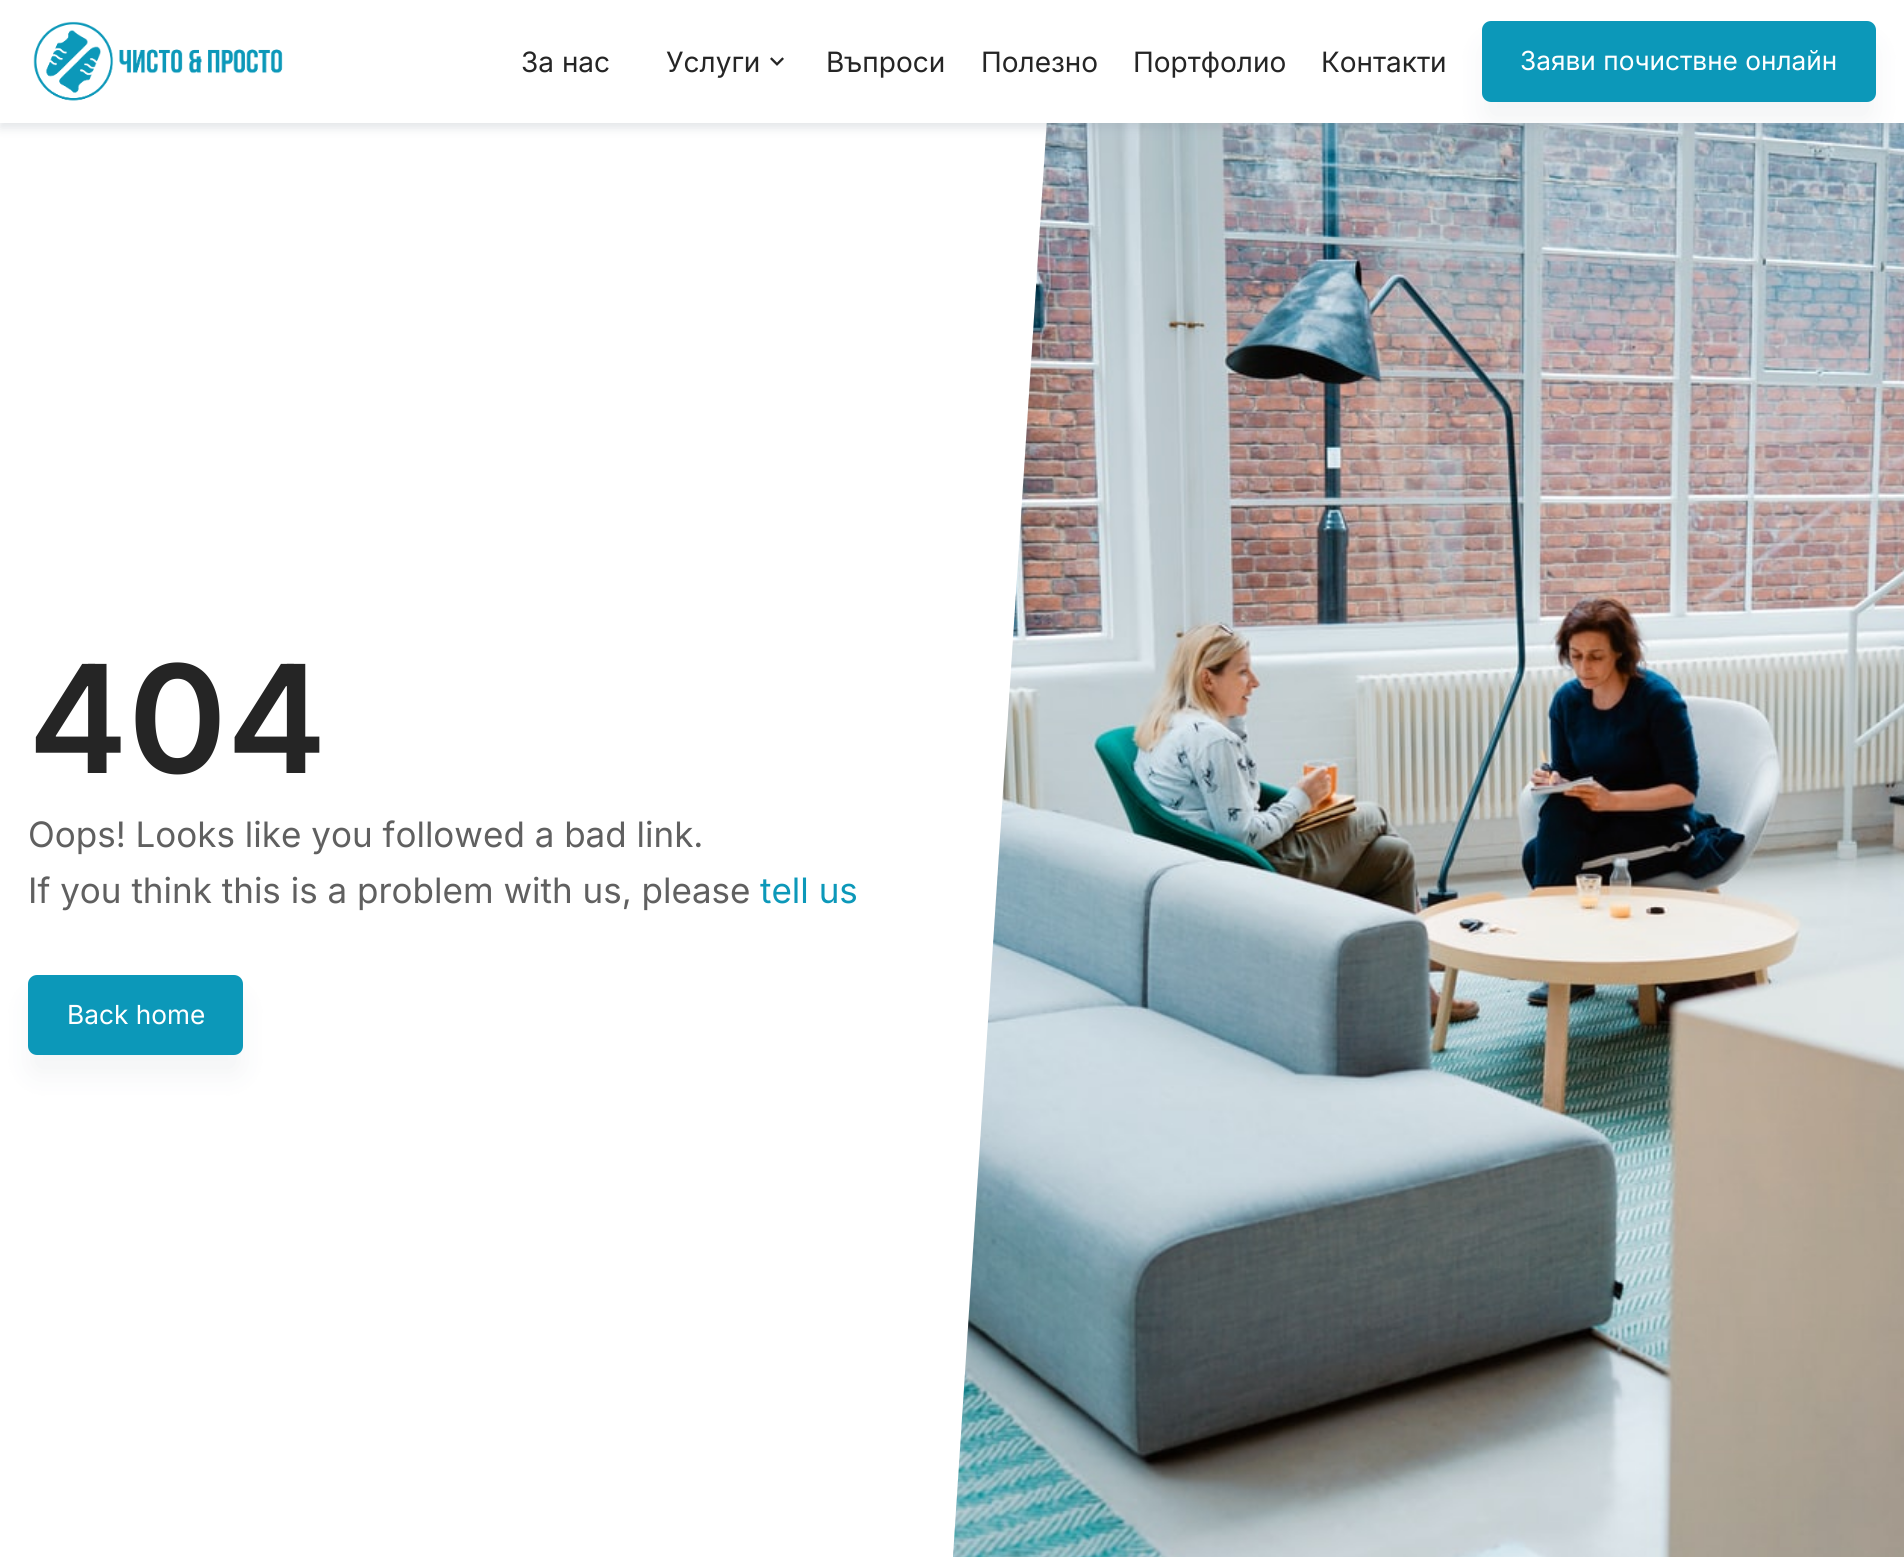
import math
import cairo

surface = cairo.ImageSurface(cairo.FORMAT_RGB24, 1904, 1557)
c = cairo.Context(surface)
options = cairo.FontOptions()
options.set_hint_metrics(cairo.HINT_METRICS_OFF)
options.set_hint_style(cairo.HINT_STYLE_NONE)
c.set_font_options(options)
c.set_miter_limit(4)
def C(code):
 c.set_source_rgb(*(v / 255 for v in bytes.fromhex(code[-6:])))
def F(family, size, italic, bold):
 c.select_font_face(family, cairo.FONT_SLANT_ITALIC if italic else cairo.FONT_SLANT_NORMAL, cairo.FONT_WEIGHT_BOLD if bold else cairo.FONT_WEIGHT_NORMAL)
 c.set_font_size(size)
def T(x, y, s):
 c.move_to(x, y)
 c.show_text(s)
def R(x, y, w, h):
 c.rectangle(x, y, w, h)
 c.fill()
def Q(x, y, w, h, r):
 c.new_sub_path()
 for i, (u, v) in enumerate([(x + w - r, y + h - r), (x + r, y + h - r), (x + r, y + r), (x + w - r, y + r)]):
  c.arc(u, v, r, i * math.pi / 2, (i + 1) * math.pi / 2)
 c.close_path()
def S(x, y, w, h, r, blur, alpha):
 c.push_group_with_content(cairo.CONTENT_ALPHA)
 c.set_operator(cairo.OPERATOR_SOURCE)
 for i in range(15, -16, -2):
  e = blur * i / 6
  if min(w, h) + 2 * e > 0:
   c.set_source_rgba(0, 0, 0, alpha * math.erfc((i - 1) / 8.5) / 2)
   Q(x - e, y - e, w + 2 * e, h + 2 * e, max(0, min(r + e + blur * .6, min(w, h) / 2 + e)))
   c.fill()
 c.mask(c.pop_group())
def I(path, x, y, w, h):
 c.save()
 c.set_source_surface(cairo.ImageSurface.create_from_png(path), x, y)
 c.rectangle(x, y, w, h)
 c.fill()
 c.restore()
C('ffffff')
c.paint()
I('3.png',953,123,951,1434)
C('8c98a4')
S(0,5,1904,123,0,5,.25)
C('ffffff')
R(0,0,1904,123)
I('1.png',33,21,250,80)
F('Inter',28,0,0)
C('252525')
T(521,72,'За нас')
T(666,72,'Услуги')
I('2.png',770,57,14,9)
T(826,72,'Въпроси')
T(981,72,'Полезно')
T(1133,72,'Портфолио')
T(1321,72,'Контакти')
C('8c98a4')
S(1482,42,394,81,9,13,.1)
C('0c98b9')
Q(1482,21,394,81,9)
c.fill()
F('Inter',26.25,0,0)
C('ffffff')
T(1520,70,'Заяви почиствне онлайн')
F('Inter SemiBold',150,0,0)
C('252525')
T(28,773,'404')
F('Inter',35,0,0)
C('606060')
T(28,847,'Oops! Looks like you followed a bad link.')
T(28,903,'If you think this is a problem with us, please')
C('0c98b9')
T(760,903,'tell us')
C('8c98a4')
S(28,996,215,80,9,13,.1)
C('0c98b9')
Q(28,975,215,80,9)
c.fill()
F('Inter',26.25,0,0)
C('ffffff')
T(67,1024,'Back home')
surface.write_to_png('o.png')
